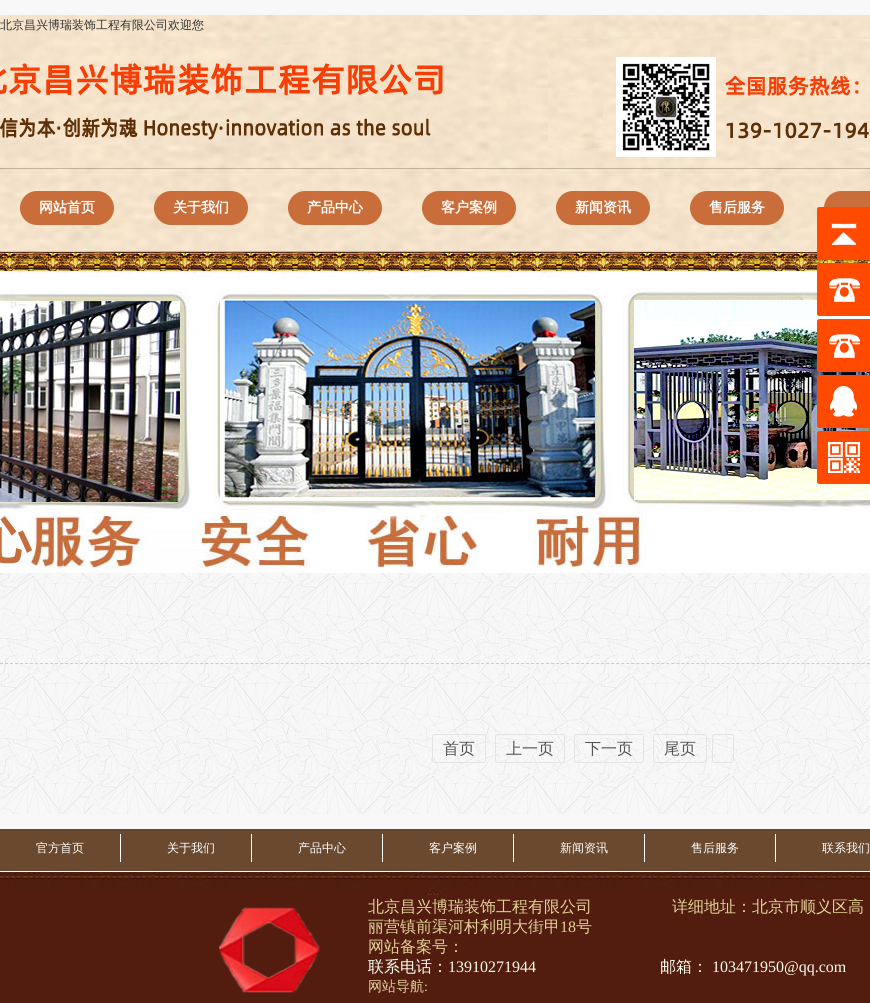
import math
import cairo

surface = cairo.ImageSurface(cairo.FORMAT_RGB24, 870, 1003)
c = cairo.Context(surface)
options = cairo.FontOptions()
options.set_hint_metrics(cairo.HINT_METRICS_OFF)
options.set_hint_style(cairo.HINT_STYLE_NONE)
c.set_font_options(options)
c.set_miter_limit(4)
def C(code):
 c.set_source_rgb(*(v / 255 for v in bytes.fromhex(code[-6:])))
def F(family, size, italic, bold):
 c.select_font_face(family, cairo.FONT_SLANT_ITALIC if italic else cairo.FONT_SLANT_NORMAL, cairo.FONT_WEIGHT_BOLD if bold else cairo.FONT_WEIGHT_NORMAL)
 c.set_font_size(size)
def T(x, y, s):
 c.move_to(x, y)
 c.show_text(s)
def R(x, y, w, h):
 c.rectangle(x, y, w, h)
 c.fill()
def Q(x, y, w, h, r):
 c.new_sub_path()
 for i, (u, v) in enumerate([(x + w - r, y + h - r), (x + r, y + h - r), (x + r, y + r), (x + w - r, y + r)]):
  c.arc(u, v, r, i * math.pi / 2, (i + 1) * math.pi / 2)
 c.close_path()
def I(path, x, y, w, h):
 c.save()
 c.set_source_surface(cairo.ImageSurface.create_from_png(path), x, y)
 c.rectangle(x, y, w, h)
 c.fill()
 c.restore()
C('f8f8f8')
c.paint()
I('1.png',0,15,870,256)
F('WenQuanYi Zen Hei Medium',12,0,0)
C('333333')
T(0,29,'北京昌兴博瑞装饰工程有限公司欢迎您')
C('c96e3b')
Q(20,191,94,34,17)
c.fill()
F('WenQuanYi Zen Hei',14,0,1)
C('ffffff')
T(39,212,'网站首页')
C('c96e3b')
Q(154,191,94,34,17)
c.fill()
C('ffffff')
T(173,212,'关于我们')
C('c96e3b')
Q(288,191,94,34,17)
c.fill()
C('ffffff')
T(307,212,'产品中心')
C('c96e3b')
Q(422,191,94,34,17)
c.fill()
C('ffffff')
T(441,212,'客户案例')
C('c96e3b')
Q(556,191,94,34,17)
c.fill()
C('ffffff')
T(575,212,'新闻资讯')
C('c96e3b')
Q(690,191,94,34,17)
c.fill()
C('ffffff')
T(709,212,'售后服务')
C('c96e3b')
Q(824,191,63,34,17)
c.fill()
C('ff4a00')
Q(817,207,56,53,3)
c.fill()
I('2.png',817,207,44,53)
I('7.png',0,271,870,302)
Q(817,263,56,53,3)
c.fill()
I('3.png',817,263,43,53)
Q(817,319,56,53,3)
c.fill()
I('4.png',817,319,43,53)
Q(817,375,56,53,3)
c.fill()
I('5.png',817,375,40,53)
Q(817,431,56,53,3)
c.fill()
I('6.png',817,431,43,53)
I('8.png',0,573,870,241)
c.new_path()
c.move_to(0,663.5)
c.line_to(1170,663.5)
C('cccccc')
c.set_line_width(1)
c.set_dash([3,2.01])
c.stroke()
Q(432.5,734.5,53,28,2.5)
C('e3e3e3')
c.set_dash([])
c.stroke()
F('WenQuanYi Zen Hei Medium',16,0,0)
C('545454')
T(443,754,'首页')
Q(495.5,734.5,69,28,2.5)
C('e3e3e3')
c.stroke()
C('545454')
T(506,754,'上一页')
Q(574.5,734.5,69,28,2.5)
C('e3e3e3')
c.stroke()
C('545454')
T(585,754,'下一页')
Q(653.5,734.5,53,28,2.5)
C('e3e3e3')
c.stroke()
C('545454')
T(664,754,'尾页')
Q(712.5,734.5,21,28,2.5)
C('e3e3e3')
c.stroke()
C('6b492e')
R(0,829,870,42)
I('9.png',0,871,870,132)
C('ffffff')
R(120,834,1,28)
F('WenQuanYi Zen Hei Medium',12,0,0)
T(36,852,'官方首页')
R(251,834,1,28)
T(167,852,'关于我们')
R(382,834,1,28)
T(298,852,'产品中心')
R(513,834,1,28)
T(429,852,'客户案例')
R(644,834,1,28)
T(560,852,'新闻资讯')
R(775,834,1,28)
T(691,852,'售后服务')
T(822,852,'联系我们')
I('10.png',219,907,101,86)
F('WenQuanYi Zen Hei Medium',16,0,0)
C('e4d197')
T(368,912,'北京昌兴博瑞装饰工程有限公司')
T(672,912,'详细地址：北京市顺义区高')
T(368,932,'丽营镇前渠河村利明大街甲')
F('Liberation Serif',16,0,0)
T(560,932,'18')
F('WenQuanYi Zen Hei Medium',16,0,0)
T(576,932,'号')
T(368,952,'网站备案号：')
C('fffff0')
T(368,972,'联系电话：')
F('Liberation Serif',16,0,0)
T(448,972,'13910271944')
F('WenQuanYi Zen Hei Medium',16,0,0)
T(660,972,'邮箱：')
F('Liberation Serif',16,0,0)
T(712,972,'103471950@qq.com')
F('WenQuanYi Zen Hei Medium',14,0,0)
C('e4d197')
T(368,991,'网站导航')
F('Liberation Serif',14,0,0)
T(424,991,':')
surface.write_to_png('o.png')
